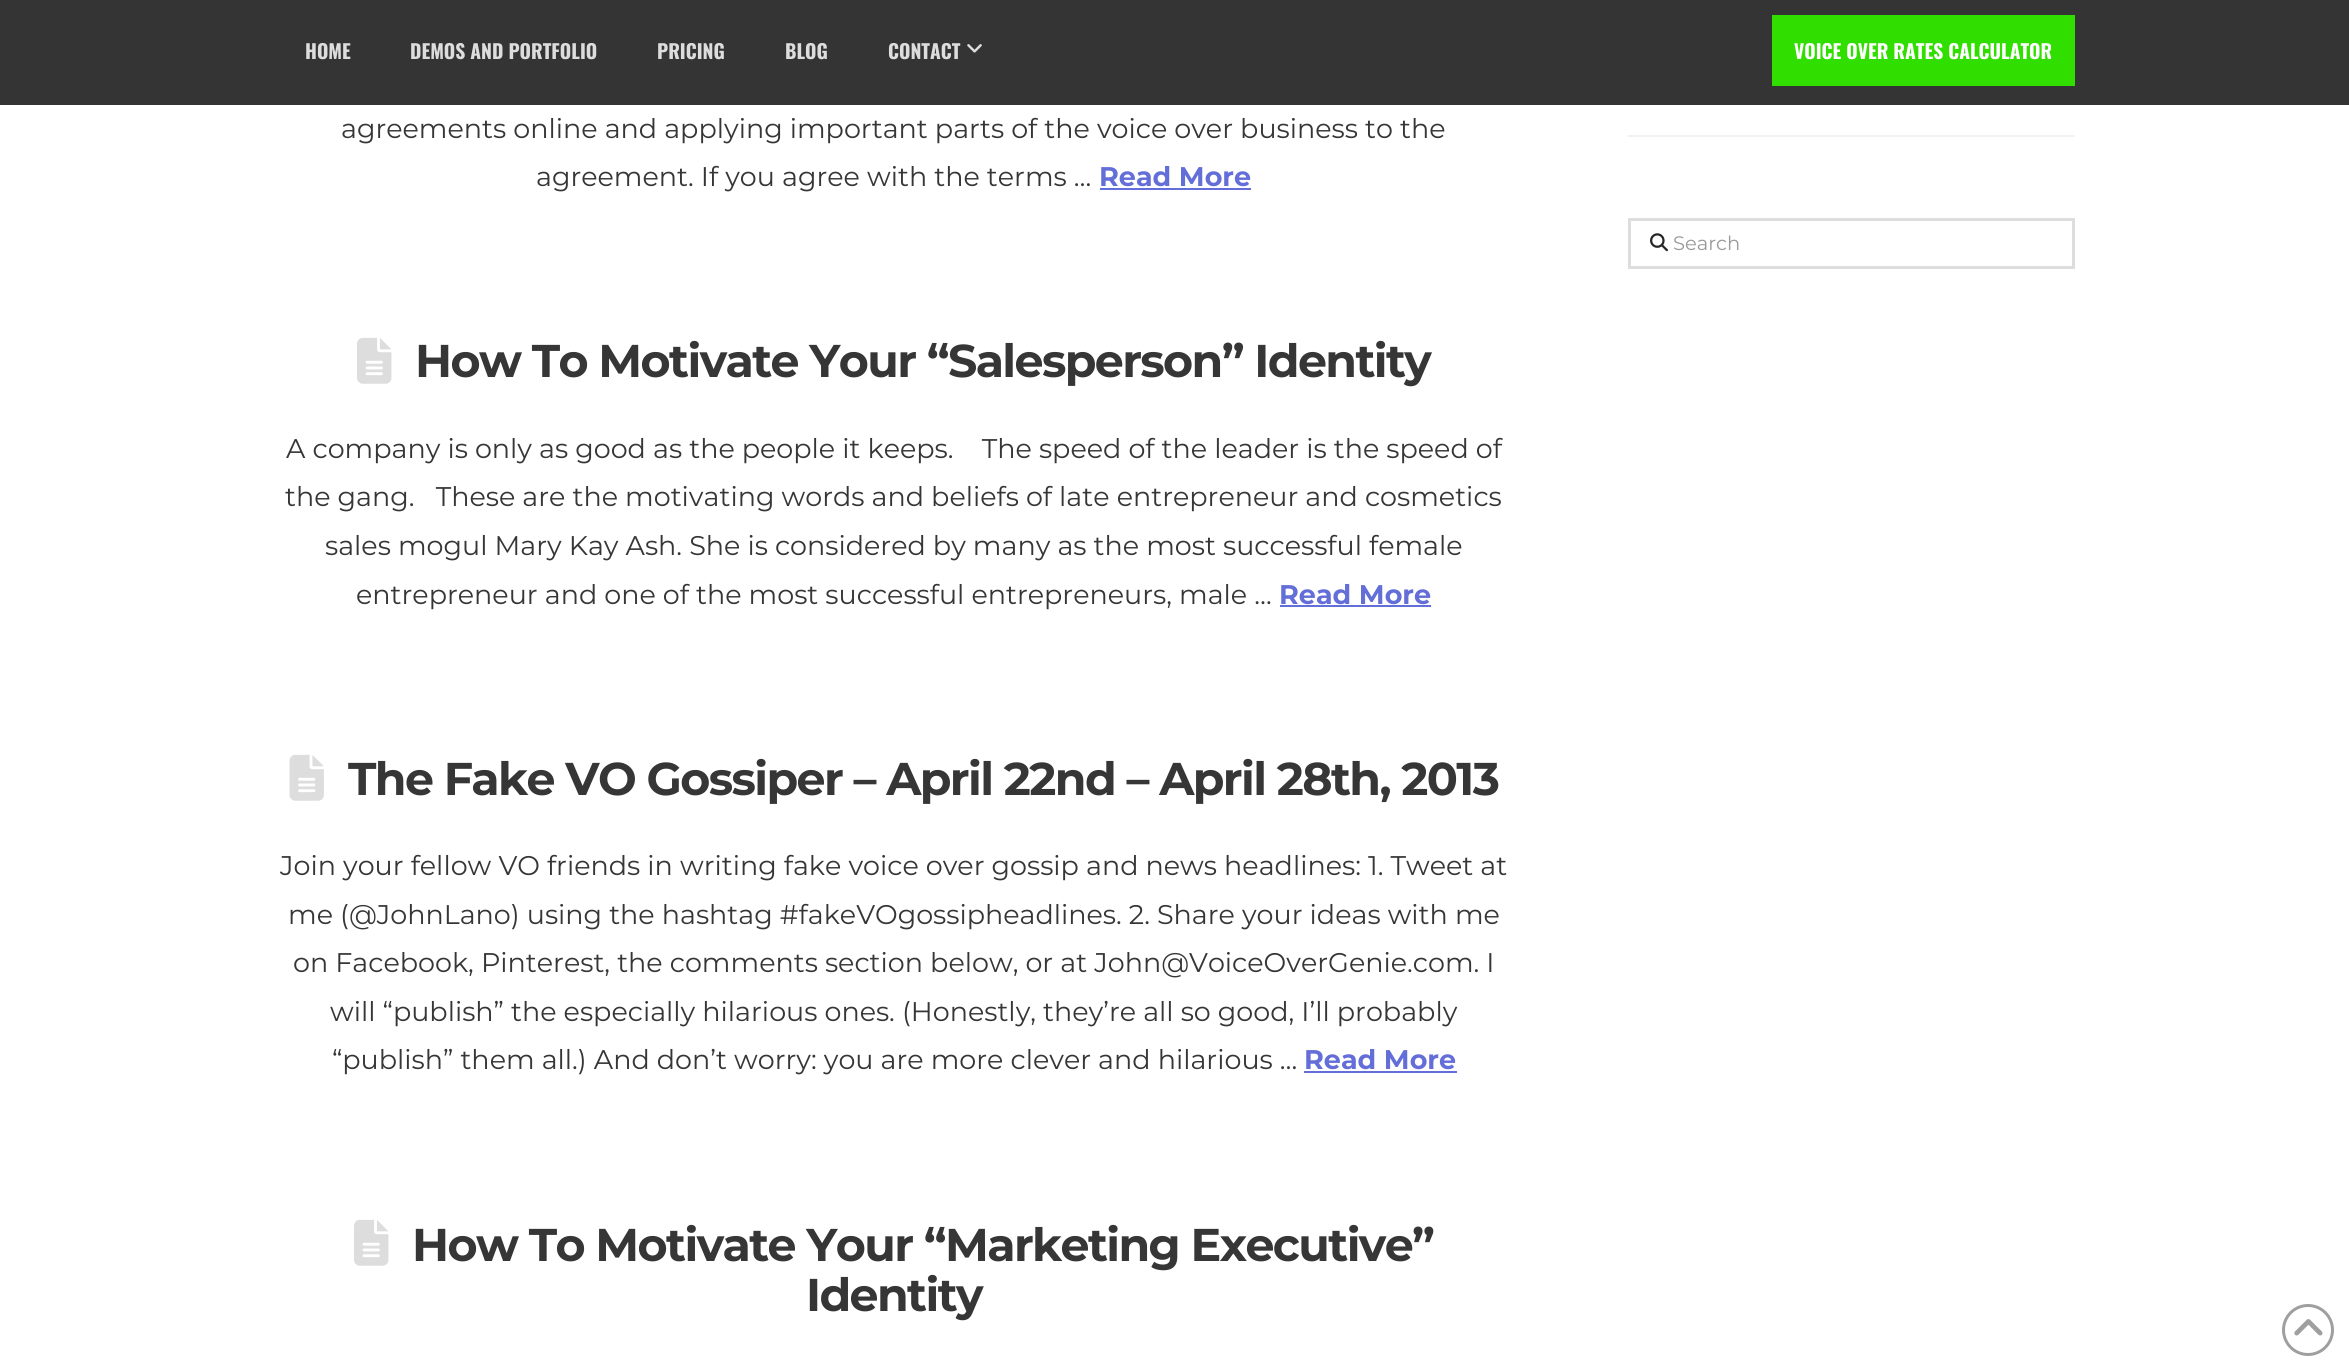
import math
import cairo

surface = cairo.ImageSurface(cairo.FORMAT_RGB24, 2349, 1371)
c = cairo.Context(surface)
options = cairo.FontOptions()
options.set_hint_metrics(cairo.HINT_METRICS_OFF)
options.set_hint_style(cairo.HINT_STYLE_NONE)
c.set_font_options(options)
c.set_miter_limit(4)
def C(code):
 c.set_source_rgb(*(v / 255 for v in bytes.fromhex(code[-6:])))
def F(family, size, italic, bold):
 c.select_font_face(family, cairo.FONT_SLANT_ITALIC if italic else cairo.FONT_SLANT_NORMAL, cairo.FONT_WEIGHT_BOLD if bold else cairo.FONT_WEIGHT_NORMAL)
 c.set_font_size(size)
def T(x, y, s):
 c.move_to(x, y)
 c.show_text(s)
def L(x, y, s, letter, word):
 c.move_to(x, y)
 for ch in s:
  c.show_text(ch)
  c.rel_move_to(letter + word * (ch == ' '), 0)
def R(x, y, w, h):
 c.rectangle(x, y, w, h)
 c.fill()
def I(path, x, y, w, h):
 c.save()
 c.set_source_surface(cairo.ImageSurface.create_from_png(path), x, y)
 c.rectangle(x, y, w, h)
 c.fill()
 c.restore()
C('ffffff')
c.paint()
C('353434')
R(0,0,2349,105)
F('Oswald',19.5,0,1)
C('dddddd')
T(305,59,'HOME')
T(410,59,'DEMOS AND PORTFOLIO')
T(657,59,'PRICING')
T(785,59,'BLOG')
T(888,59,'CONTACT')
I('1.png',967,44,15,9)
C('30de00')
R(1772,15,303,71)
C('ffffff')
T(1794,59,'VOICE OVER RATES CALCULATOR')
F('Montserrat',27,0,0)
C('363636')
T(341,138,'agreements online and applying important parts of the voice over business to the')
T(536,186,'agreement. If you agree with the terms …')
F('Montserrat',27,0,1)
C('636ed8')
T(1099,186,'Read More')
R(1100,188,151,2)
I('2.png',357,337,35,47)
F('Montserrat',45.9,0,1)
C('363636')
L(415,377,'How To Motivate Your “Salesperson” Identity',-1.6,0)
F('Montserrat',27,0,0)
T(286,458,'A company is only as good as the people it keeps.    The speed of the leader is the speed of')
T(285,506,'the gang.   These are the motivating words and beliefs of late entrepreneur and cosmetics')
T(325,555,'sales mogul Mary Kay Ash. She is considered by many as the most successful female')
T(356,604,'entrepreneur and one of the most successful entrepreneurs, male …')
F('Montserrat',27,0,1)
C('636ed8')
T(1279,604,'Read More')
R(1280,605,151,2)
I('3.png',289,754,35,47)
F('Montserrat',45.9,0,1)
C('363636')
L(348,795,'The Fake VO Gossiper – April 22nd – April 28th, 2013',-1.6,0)
F('Montserrat',27,0,0)
T(280,875,'Join your fellow VO friends in writing fake voice over gossip and news headlines: 1. Tweet at')
T(288,924,'me (@JohnLano) using the hashtag #fakeVOgossipheadlines. 2. Share your ideas with me')
T(293,972,'on Facebook, Pinterest, the comments section below, or at John@VoiceOverGenie.com. I')
T(330,1021,'will “publish” the especially hilarious ones. (Honestly, they’re all so good, I’ll probably')
T(332,1069,'“publish” them all.) And don’t worry: you are more clever and hilarious …')
F('Montserrat',27,0,1)
C('636ed8')
T(1304,1069,'Read More')
R(1304,1071,153,2)
I('2.png',354,1219,35,47)
F('Montserrat',45.9,0,1)
C('363636')
L(412,1261,'How To Motivate Your “Marketing Executive”',-1.6,0)
L(806,1311,'Identity',-1.6,0)
C('f2f2f2')
R(1628,135,447,2)
c.rectangle(1629.5,219.5,444,48)
C('dddddd')
c.set_line_width(3)
c.stroke()
I('4.png',1650,233,18,19)
F('Montserrat',19.5,0,0)
C('999999')
T(1673,250,'Search')
c.new_path()
c.arc(2308,1330,24.5,0,2 * math.pi)
C('9f9f9f')
c.stroke()
I('5.png',2294,1319,29,17)
surface.write_to_png('o.png')
